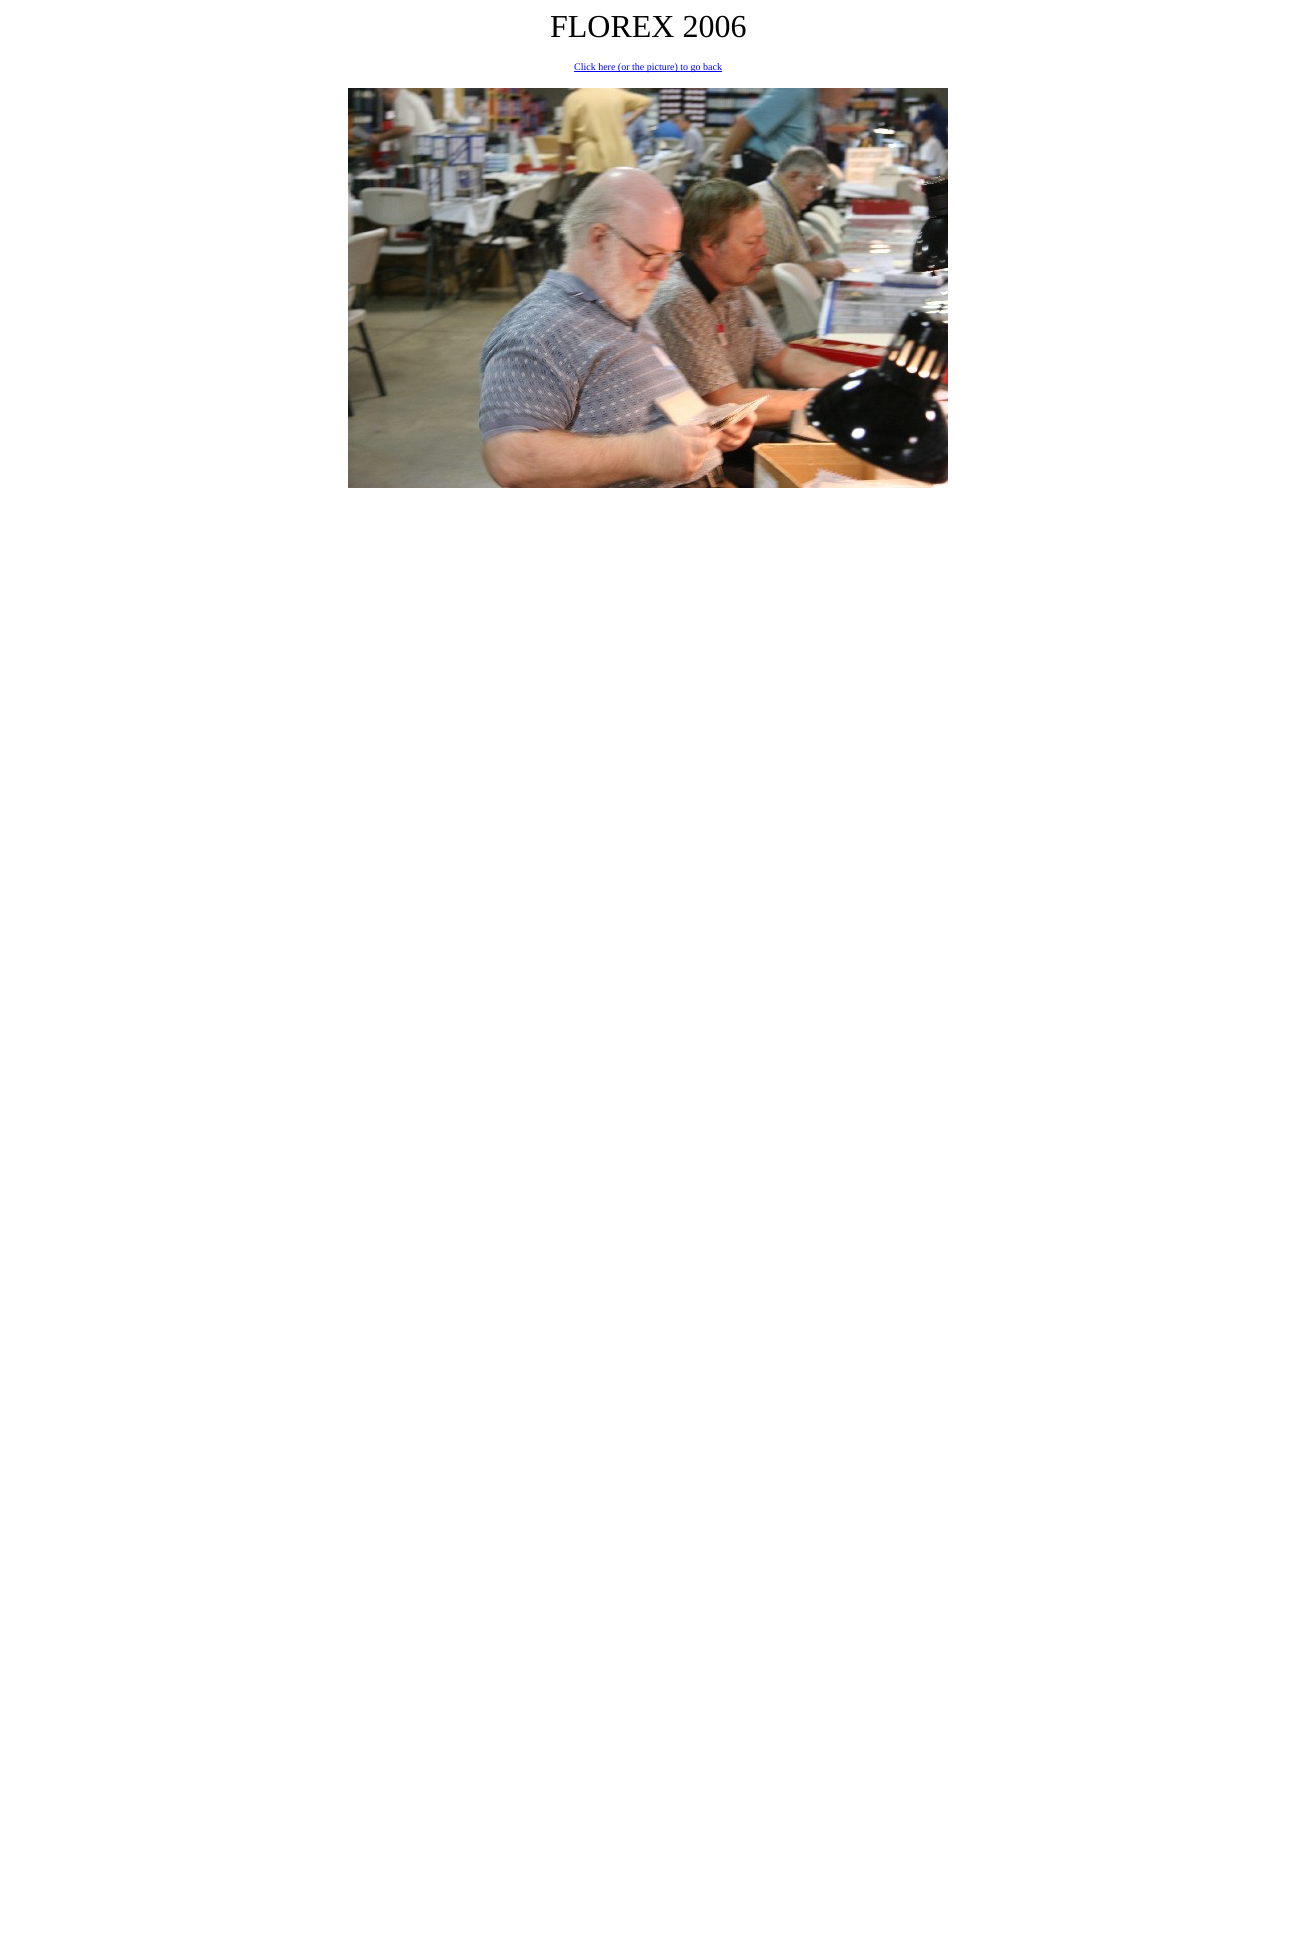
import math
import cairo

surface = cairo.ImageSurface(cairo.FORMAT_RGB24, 1296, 1949)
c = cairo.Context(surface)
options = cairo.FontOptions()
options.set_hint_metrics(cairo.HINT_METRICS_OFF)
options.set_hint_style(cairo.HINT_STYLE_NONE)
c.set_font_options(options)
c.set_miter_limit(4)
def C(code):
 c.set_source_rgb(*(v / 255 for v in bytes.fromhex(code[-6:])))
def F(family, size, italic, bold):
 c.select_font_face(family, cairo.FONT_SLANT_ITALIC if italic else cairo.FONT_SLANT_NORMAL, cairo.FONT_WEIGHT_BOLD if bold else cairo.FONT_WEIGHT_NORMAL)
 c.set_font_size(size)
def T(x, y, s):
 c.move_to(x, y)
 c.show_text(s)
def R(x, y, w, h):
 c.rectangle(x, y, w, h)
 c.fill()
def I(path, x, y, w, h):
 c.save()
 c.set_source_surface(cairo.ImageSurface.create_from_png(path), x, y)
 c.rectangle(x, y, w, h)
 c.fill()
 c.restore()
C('ffffff')
c.paint()
F('Liberation Serif',32,0,0)
C('000000')
T(550,37,'FLOREX 2006')
C('0000ff')
R(574,71,148,1)
F('Liberation Serif',10,0,0)
T(574,70,'Click here (or the picture) to go back')
I('1.png',348,88,600,400)
surface.write_to_png('o.png')
